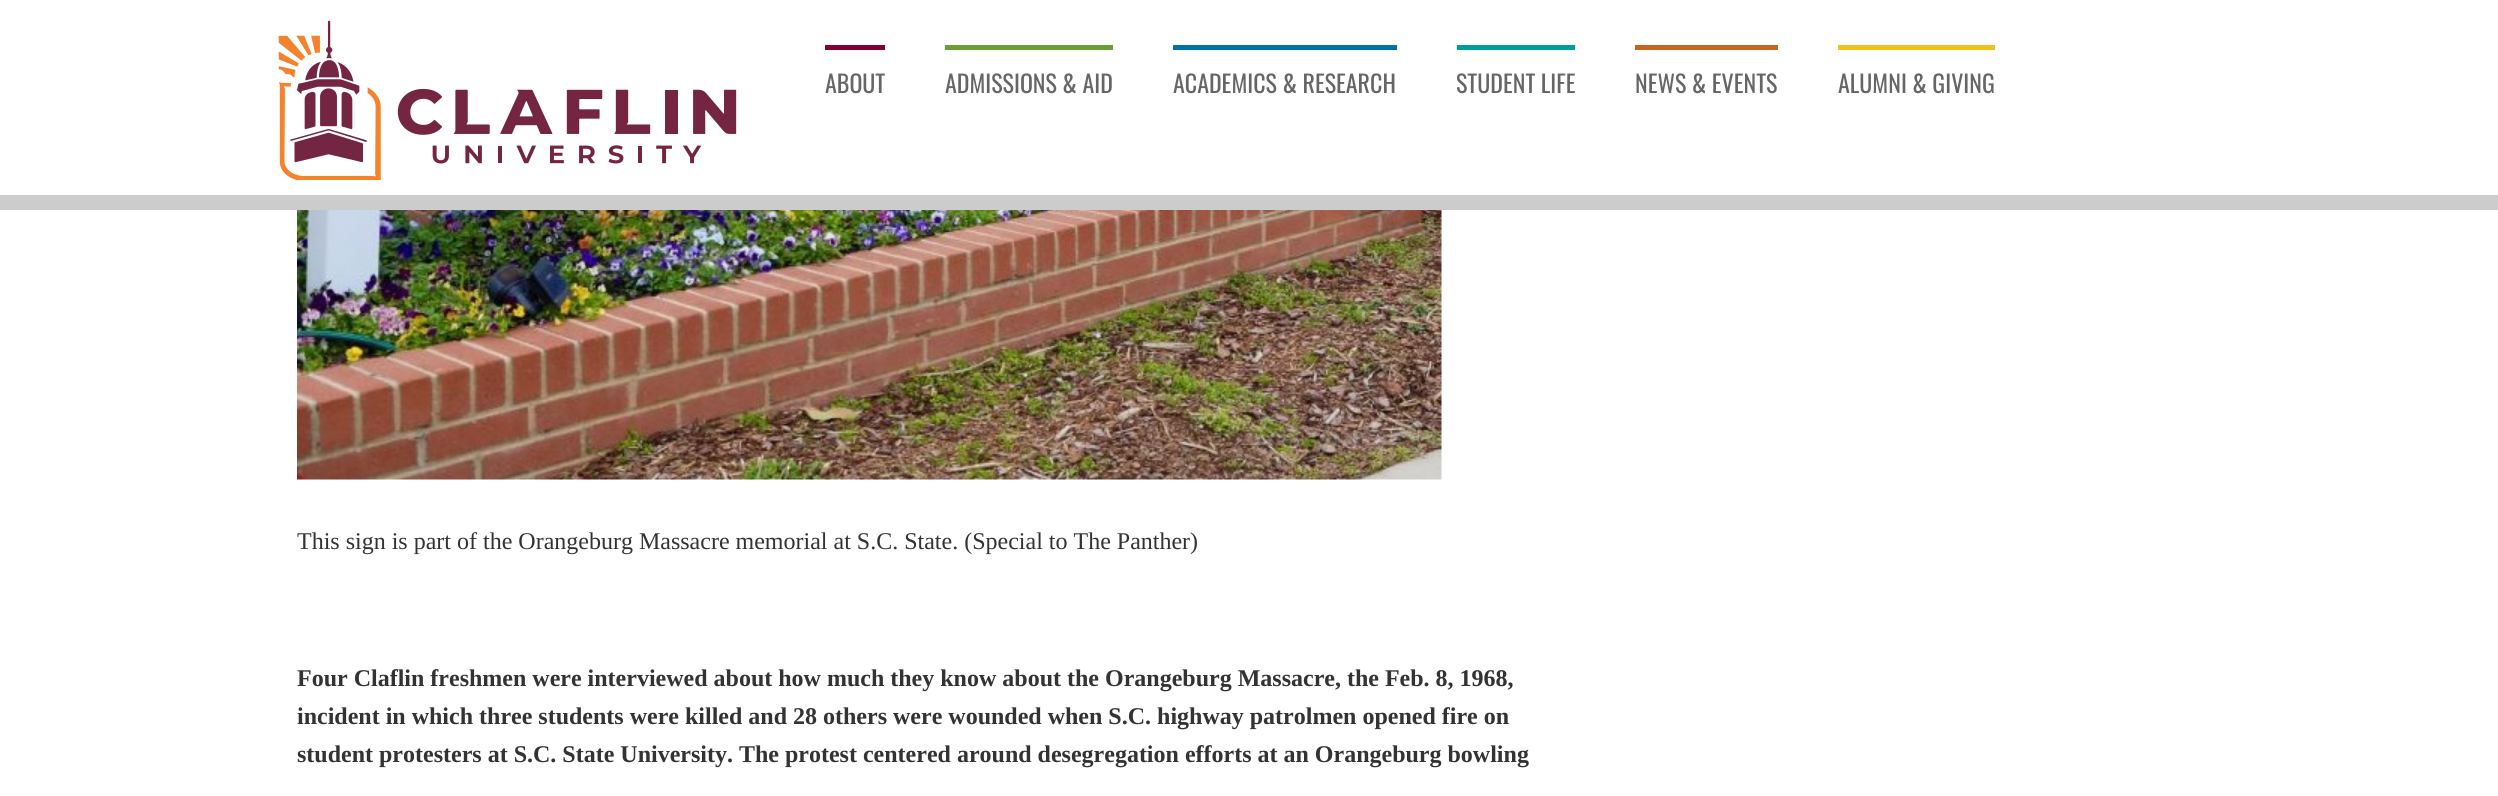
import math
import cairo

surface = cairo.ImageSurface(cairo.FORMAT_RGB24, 2498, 796)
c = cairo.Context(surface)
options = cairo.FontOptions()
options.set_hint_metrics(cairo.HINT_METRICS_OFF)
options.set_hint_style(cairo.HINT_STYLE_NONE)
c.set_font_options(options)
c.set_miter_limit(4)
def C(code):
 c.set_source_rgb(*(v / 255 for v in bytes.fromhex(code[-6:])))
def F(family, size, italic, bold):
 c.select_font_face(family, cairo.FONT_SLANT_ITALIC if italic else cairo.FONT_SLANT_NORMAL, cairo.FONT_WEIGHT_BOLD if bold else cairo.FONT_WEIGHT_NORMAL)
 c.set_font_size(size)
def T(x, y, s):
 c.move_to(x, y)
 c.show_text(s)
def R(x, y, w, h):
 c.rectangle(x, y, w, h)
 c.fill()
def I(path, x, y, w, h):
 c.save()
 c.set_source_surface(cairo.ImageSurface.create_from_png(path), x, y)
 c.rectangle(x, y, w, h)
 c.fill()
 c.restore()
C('ffffff')
c.paint()
I('1.png',278,20,459,160)
C('860038')
R(825,45,60,5)
F('Oswald',24,0,0)
C('666666')
T(825,93,'ABOUT')
C('6aa034')
R(945,45,168,5)
C('666666')
T(945,93,'ADMISSIONS & AID')
C('0172a5')
R(1173,45,224,5)
C('666666')
T(1173,93,'ACADEMICS & RESEARCH')
C('009c9e')
R(1457,45,118,5)
C('666666')
T(1456,93,'STUDENT LIFE')
C('c4661f')
R(1635,45,143,5)
C('666666')
T(1635,93,'NEWS & EVENTS')
C('edc31c')
R(1838,45,157,5)
C('666666')
T(1838,93,'ALUMNI & GIVING')
C('cccccc')
R(0,195,2498,15)
I('2.png',297,210,1145,270)
F('Liberation Serif',24,0,0)
C('333333')
T(297,549,'This sign is part of the Orangeburg Massacre memorial at S.C. State. (Special to The Panther)')
F('Liberation Serif',24,0,1)
T(297,686,'Four Claflin freshmen were interviewed about how much they know about the Orangeburg Massacre, the Feb. 8, 1968,')
T(297,724,'incident in which three students were killed and 28 others were wounded when S.C. highway patrolmen opened fire on')
T(297,762,'student protesters at S.C. State University. The protest centered around desegregation efforts at an Orangeburg bowling')
surface.write_to_png('o.png')
